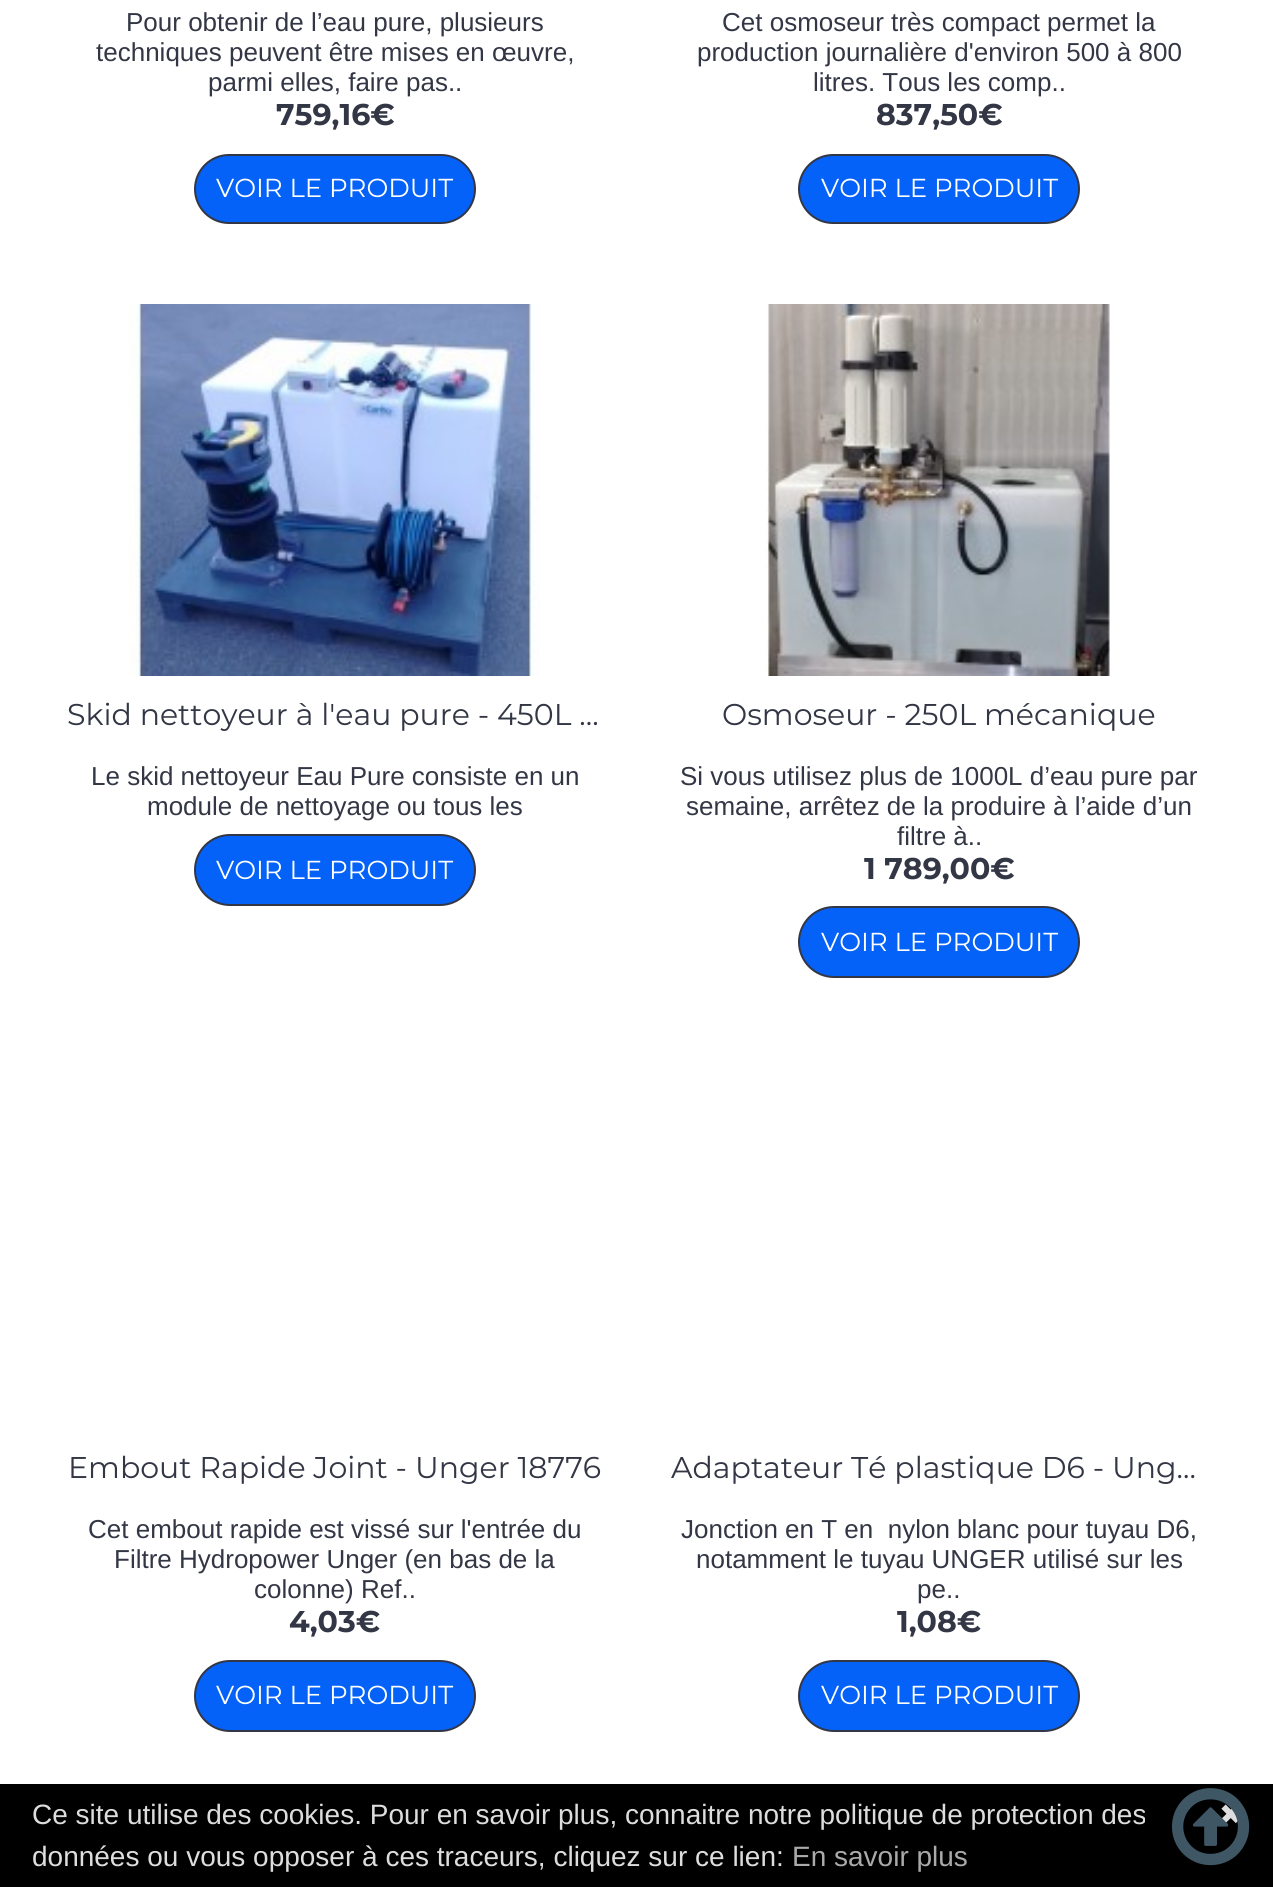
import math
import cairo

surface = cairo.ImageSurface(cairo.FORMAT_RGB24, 1273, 1887)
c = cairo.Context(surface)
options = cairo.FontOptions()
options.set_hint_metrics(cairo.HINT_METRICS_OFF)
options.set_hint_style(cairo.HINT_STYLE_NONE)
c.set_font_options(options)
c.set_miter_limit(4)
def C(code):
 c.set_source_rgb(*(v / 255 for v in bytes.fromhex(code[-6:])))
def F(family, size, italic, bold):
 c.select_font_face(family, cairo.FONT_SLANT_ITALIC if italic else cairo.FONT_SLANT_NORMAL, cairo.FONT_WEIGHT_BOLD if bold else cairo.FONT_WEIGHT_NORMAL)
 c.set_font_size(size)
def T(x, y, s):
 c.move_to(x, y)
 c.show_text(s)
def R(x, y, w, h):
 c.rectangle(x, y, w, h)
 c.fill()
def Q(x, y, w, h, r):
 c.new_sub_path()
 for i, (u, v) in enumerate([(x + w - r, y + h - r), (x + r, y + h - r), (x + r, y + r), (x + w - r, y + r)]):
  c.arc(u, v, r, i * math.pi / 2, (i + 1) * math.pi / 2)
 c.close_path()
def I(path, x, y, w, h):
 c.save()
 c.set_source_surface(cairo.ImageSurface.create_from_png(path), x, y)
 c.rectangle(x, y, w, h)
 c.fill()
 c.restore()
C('ffffff')
c.paint()
F('Liberation Sans',26,0,0)
C('333745')
T(126,31,'Pour obtenir de l’eau pure, plusieurs')
T(96,61,'techniques peuvent être mises en œuvre,')
T(208,91,'parmi elles, faire pas..')
F('Montserrat',30,0,1)
T(276,125,'759,16€')
C('0462f9')
Q(195,155,280,68,34)
c.fill_preserve()
C('333745')
c.stroke()
F('Montserrat',26,0,0)
C('ffffff')
T(216,197,'VOIR LE PRODUIT')
F('Liberation Sans',26,0,0)
C('333745')
T(722,31,'Cet osmoseur très compact permet la')
T(697,61,'production journalière d\'environ 500 à 800')
T(813,91,'litres. Tous les comp..')
F('Montserrat',30,0,1)
T(876,125,'837,50€')
C('0462f9')
Q(799,155,280,68,34)
c.fill_preserve()
C('333745')
c.stroke()
F('Montserrat',26,0,0)
C('ffffff')
T(821,197,'VOIR LE PRODUIT')
I('1.png',129,304,411,372)
F('Montserrat',30,0,0)
C('333745')
T(67,725,'Skid nettoyeur à l\'eau pure - 450L …')
F('Liberation Sans',26,0,0)
T(91,785,'Le skid nettoyeur Eau Pure consiste en un')
T(147,815,'module de nettoyage ou tous les')
C('0462f9')
Q(195,835,280,70,35)
c.fill_preserve()
C('333745')
c.stroke()
F('Montserrat',26,0,0)
C('ffffff')
T(216,879,'VOIR LE PRODUIT')
I('2.png',766,304,344,372)
F('Montserrat',30,0,0)
C('333745')
T(722,725,'Osmoseur - 250L mécanique')
F('Liberation Sans',26,0,0)
T(680,785,'Si vous utilisez plus de 1000L d’eau pure par')
T(686,815,'semaine, arrêtez de la produire à l’aide d’un')
T(897,845,'filtre à..')
F('Montserrat',30,0,1)
T(864,879,'1 789,00€')
C('0462f9')
Q(799,907,280,70,35)
c.fill_preserve()
C('333745')
c.stroke()
F('Montserrat',26,0,0)
C('ffffff')
T(821,951,'VOIR LE PRODUIT')
F('Montserrat',30,0,0)
C('333745')
T(68,1478,'Embout Rapide Joint - Unger 18776')
F('Liberation Sans',26,0,0)
T(88,1538,'Cet embout rapide est vissé sur l\'entrée du')
T(114,1568,'Filtre Hydropower Unger (en bas de la')
T(254,1598,'colonne) Ref..')
F('Montserrat',30,0,1)
T(289,1632,'4,03€')
C('0462f9')
Q(195,1661,280,70,35)
c.fill_preserve()
C('333745')
c.stroke()
F('Montserrat',26,0,0)
C('ffffff')
T(216,1704,'VOIR LE PRODUIT')
F('Montserrat',30,0,0)
C('333745')
T(671,1478,'Adaptateur Té plastique D6 - Ung…')
F('Liberation Sans',26,0,0)
T(681,1538,'Jonction en T en  nylon blanc pour tuyau D6,')
T(696,1568,'notamment le tuyau UNGER utilisé sur les')
T(917,1598,'pe..')
F('Montserrat',30,0,1)
T(897,1632,'1,08€')
C('0462f9')
Q(799,1661,280,70,35)
c.fill_preserve()
C('333745')
c.stroke()
F('Montserrat',26,0,0)
C('ffffff')
T(821,1704,'VOIR LE PRODUIT')
C('000000')
R(0,1784,1273,103)
F('DejaVu Sans',28,0,0)
C('dddddd')
T(1219,1824,'✖')
I('3.png',1172,1788,78,78)
F('Liberation Sans',28,0,0)
T(32,1824,'Ce site utilise des cookies. Pour en savoir plus, connaitre notre politique de protection des')
T(32,1866,'données ou vous opposer à ces traceurs, cliquez sur ce lien:')
C('aaaaaa')
T(792,1866,'En savoir plus')
surface.write_to_png('o.png')
